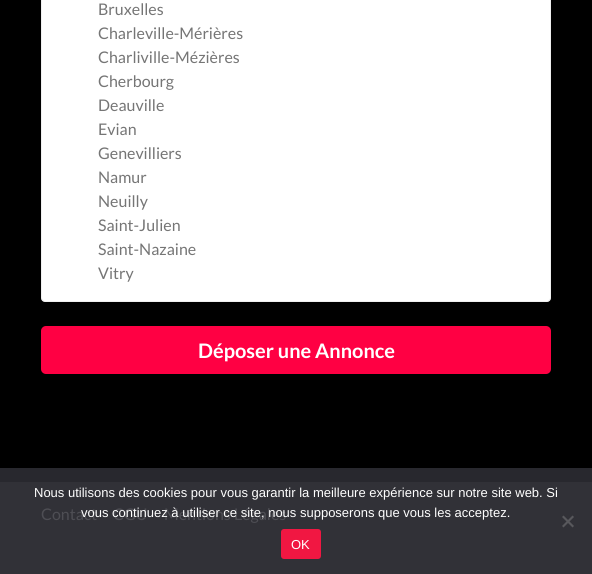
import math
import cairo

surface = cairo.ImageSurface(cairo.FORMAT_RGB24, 592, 574)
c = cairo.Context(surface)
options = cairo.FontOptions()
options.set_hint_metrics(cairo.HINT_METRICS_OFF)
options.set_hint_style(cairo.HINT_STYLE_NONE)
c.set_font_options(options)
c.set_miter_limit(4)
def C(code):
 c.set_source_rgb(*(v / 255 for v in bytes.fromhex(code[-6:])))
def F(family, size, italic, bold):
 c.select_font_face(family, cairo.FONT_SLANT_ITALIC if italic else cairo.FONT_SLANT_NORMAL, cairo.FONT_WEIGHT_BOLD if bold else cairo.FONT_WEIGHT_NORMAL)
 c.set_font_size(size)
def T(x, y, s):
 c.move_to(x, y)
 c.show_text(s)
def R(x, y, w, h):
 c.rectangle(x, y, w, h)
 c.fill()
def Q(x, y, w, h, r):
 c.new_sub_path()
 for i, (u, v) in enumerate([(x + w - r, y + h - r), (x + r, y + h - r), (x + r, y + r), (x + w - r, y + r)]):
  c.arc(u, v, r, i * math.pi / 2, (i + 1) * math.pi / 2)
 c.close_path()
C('000000')
c.paint()
C('28282e')
R(0,468,592,14)
C('ffffff')
Q(41.5,-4.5,509,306,3.5)
c.fill_preserve()
C('f0f0f0')
c.set_line_width(1)
c.stroke()
F('Lato',16,0,0)
C('757575')
T(98,15,'Bruxelles')
T(98,39,'Charleville-Mérières')
T(98,63,'Charliville-Mézières')
T(98,87,'Cherbourg')
T(98,111,'Deauville')
T(98,135,'Evian')
T(98,159,'Genevilliers')
T(98,183,'Namur')
T(98,207,'Neuilly')
T(98,231,'Saint-Julien')
T(98,255,'Saint-Nazaine')
T(98,279,'Vitry')
C('ff0043')
Q(41,326,510,48,5)
c.fill()
F('Lato',20,0,1)
C('ffffff')
T(198,358,'Déposer une Annonce')
C('313137')
R(0,482,592,92)
F('Lato',16,0,0)
C('4e4e54')
T(41,520,'Contact')
T(113,520,'CGU')
T(164,520,'Mentions Légales')
F('Liberation Sans',13,0,0)
C('ffffff')
T(34,497,'Nous utilisons des cookies pour vous garantir la meilleure expérience sur notre site web. Si')
T(81,517,'vous continuez à utiliser ce site, nous supposerons que vous les acceptez.')
C('58585c')
c.new_path()
c.move_to(572.5,515.5)
c.line_to(574,517)
c.line_to(563.5,527.5)
c.line_to(562,526)
c.close_path()
c.fill()
c.new_path()
c.move_to(562,517)
c.line_to(563.5,515.5)
c.line_to(574,526)
c.line_to(572.5,527.5)
c.close_path()
c.fill()
C('f11742')
Q(281,529,40,30,3)
c.fill()
C('ffffff')
T(291,549,'OK')
surface.write_to_png('o.png')
